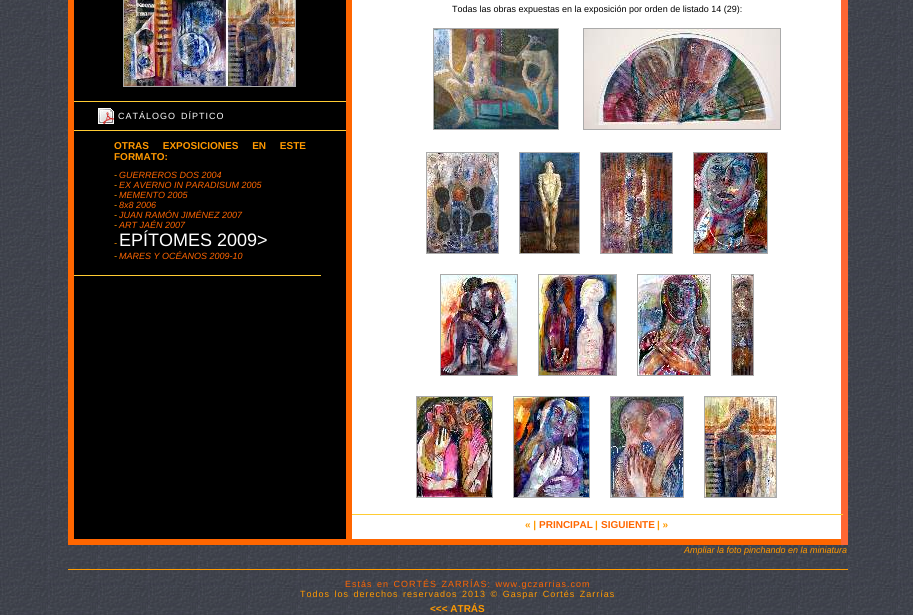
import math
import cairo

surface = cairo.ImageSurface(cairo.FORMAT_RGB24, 913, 615)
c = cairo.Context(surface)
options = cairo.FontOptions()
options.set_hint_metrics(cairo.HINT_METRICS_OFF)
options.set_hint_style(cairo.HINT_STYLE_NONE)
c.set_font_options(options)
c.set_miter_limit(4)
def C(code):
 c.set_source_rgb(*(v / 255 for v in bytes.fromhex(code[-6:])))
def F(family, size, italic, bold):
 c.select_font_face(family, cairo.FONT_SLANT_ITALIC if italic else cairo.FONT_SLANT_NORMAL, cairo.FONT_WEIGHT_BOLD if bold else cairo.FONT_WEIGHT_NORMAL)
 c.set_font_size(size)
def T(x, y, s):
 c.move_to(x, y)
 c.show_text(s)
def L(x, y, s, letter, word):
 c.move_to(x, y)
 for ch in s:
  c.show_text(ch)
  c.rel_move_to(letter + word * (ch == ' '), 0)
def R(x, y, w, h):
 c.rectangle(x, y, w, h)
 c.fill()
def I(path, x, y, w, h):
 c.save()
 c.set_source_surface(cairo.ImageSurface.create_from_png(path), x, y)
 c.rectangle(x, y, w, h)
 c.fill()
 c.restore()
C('ffffff')
c.paint()
I('1.png',0,0,913,615)
C('ff6600')
R(68,0,6,545)
C('000000')
R(74,0,272,539)
c.rectangle(123.5,-.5,172,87)
C('aaaaaa')
c.set_line_width(1)
c.stroke()
I('2.png',124,0,171,86)
C('ffcc33')
R(74,101,272,1)
I('3.png',98,108,16,16)
F('Liberation Sans',9,0,0)
C('ffffff')
L(118,119,'CATÁLOGO',1,0)
L(181,119,'DÍPTICO',1,0)
C('ffcc33')
R(74,130,272,1)
F('Liberation Sans',10,0,1)
C('ff9900')
L(114,149,'OTRAS EXPOSICIONES EN ESTE',0,11)
T(114,160,'FORMATO:')
F('Liberation Sans',9,1,0)
T(114,178,'-')
C('ff6600')
T(119,178,'GUERREROS DOS 2004')
C('ff9900')
T(114,188,'-')
C('ff6600')
T(119,188,'EX AVERNO IN PARADISUM 2005')
C('ff9900')
T(114,198,'-')
C('ff6600')
T(119,198,'MEMENTO 2005')
C('ff9900')
T(114,208,'-')
C('ff6600')
T(119,208,'8x8 2006')
C('ff9900')
T(114,218,'-')
C('ff6600')
T(119,218,'JUAN RAMÓN JIMÉNEZ 2007')
C('ff9900')
T(114,228,'-')
C('ff6600')
T(119,228,'ART JAÉN 2007')
C('ff9900')
T(114,246,'-')
F('Liberation Sans',18,0,0)
C('ffffff')
T(119,246,'EPÍTOMES 2009>')
F('Liberation Sans',9,1,0)
C('ff9900')
T(114,259,'-')
C('ff6600')
T(119,259,'MARES Y OCÉANOS 2009-10')
C('ffcc33')
R(74,275,247,1)
C('ff6600')
R(346,0,6,539)
C('ffffff')
R(352,0,489,539)
F('Liberation Sans',9,0,0)
C('000000')
T(452,12,'Todas las obras expuestas en la exposición por orden de listado 14 (29):')
c.rectangle(433.5,28.5,125,101)
C('aaaaaa')
c.stroke()
c.rectangle(583.5,28.5,197,101)
c.stroke()
I('4.png',434,29,124,100)
I('5.png',584,29,196,100)
c.rectangle(426.5,152.5,72,101)
c.stroke()
c.rectangle(519.5,152.5,60,101)
c.stroke()
c.rectangle(600.5,152.5,72,101)
c.stroke()
c.rectangle(693.5,152.5,74,101)
c.stroke()
I('6.png',427,153,71,100)
I('7.png',520,153,59,100)
I('8.png',601,153,71,100)
I('9.png',694,153,73,100)
c.rectangle(440.5,274.5,77,101)
c.stroke()
c.rectangle(538.5,274.5,78,101)
c.stroke()
c.rectangle(637.5,274.5,73,101)
c.stroke()
c.rectangle(731.5,274.5,22,101)
c.stroke()
I('10.png',441,275,76,100)
I('11.png',539,275,77,100)
I('12.png',638,275,72,100)
I('13.png',732,275,21,100)
c.rectangle(416.5,396.5,76,101)
c.stroke()
c.rectangle(513.5,396.5,76,101)
c.stroke()
c.rectangle(610.5,396.5,73,101)
c.stroke()
c.rectangle(704.5,396.5,72,101)
c.stroke()
I('14.png',417,397,75,100)
I('15.png',514,397,75,100)
I('16.png',611,397,72,100)
I('17.png',705,397,71,100)
C('ff6633')
R(841,0,7,545)
C('ffcc33')
R(352,514,491,1)
F('Liberation Sans',10,0,1)
C('ff9900')
T(525,528,'« |')
C('ff6600')
T(539,528,'PRINCIPAL')
C('ff9900')
T(595,528,'|')
C('ff6600')
T(601,528,'SIGUIENTE')
C('ff9900')
T(657,528,'| »')
C('ff6600')
R(74,539,767,6)
F('Liberation Sans',9,1,0)
C('ff9900')
T(684,553,'Ampliar la foto pinchando en la miniatura')
C('ff9a00')
R(68,569,780,1)
F('Liberation Sans',9,0,0)
C('ff6600')
L(345,587,'Estás',1,0)
L(377,587,'en CORTÉS ZARRÍAS: www.gczarrias.com',1,1)
C('ff9900')
L(300,597,'Todos los derechos reservados 2013 © Gaspar Cortés Zarrías',1,1)
F('Liberation Sans',10,0,1)
T(430,612,'<<< ATRÁS')
surface.write_to_png('o.png')
